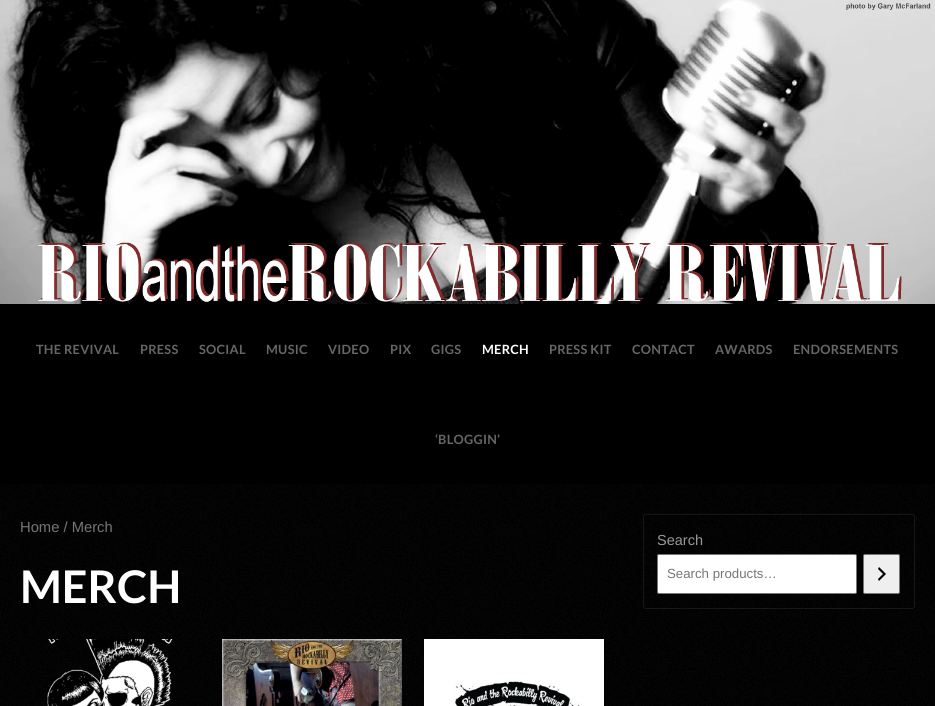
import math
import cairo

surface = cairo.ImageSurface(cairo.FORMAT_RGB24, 935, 706)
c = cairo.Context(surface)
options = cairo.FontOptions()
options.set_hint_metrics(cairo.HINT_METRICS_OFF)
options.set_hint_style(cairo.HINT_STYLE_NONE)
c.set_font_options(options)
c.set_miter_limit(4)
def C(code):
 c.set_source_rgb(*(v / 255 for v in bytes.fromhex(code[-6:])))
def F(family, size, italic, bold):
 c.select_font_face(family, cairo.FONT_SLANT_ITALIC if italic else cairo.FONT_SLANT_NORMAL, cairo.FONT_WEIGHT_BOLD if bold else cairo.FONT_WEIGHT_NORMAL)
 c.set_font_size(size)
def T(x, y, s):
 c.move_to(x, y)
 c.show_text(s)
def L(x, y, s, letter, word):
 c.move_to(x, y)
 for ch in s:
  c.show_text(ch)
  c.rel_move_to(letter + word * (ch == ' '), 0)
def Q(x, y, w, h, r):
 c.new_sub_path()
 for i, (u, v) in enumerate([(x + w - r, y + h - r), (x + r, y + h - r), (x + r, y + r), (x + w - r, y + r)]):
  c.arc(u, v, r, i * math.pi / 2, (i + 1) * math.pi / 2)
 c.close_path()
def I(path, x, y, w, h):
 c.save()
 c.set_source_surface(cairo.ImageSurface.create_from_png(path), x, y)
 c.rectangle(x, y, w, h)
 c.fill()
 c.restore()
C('000000')
c.paint()
I('1.png',0,484,935,222)
I('2.png',0,0,935,304)
F('Lato',12.75,0,1)
C('666666')
L(36,354,'THE REVIVAL',.25,0)
L(140,354,'PRESS',.25,0)
L(199,354,'SOCIAL',.25,0)
L(266,354,'MUSIC',.25,0)
L(328,354,'VIDEO',.25,0)
L(390,354,'PIX',.25,0)
L(431,354,'GIGS',.25,0)
C('ffffff')
L(482,354,'MERCH',.25,0)
C('666666')
L(549,354,'PRESS KIT',.25,0)
L(632,354,'CONTACT',.25,0)
L(715,354,'AWARDS',.25,0)
L(793,354,'ENDORSEMENTS',.25,0)
L(435,444,'‘BLOGGIN’',.25,0)
F('Liberation Sans',14.75,0,0)
C('767676')
T(20,532,'Home / Merch')
F('Lato',45,0,1)
C('ffffff')
T(20,603,'MERCH')
I('3.png',47,639,126,67)
I('4.png',222,639,180,67)
I('5.png',424,639,180,67)
c.set_source_rgba(0,0,0,0.9)
c.new_path()
c.move_to(646,516)
c.line_to(912,516)
c.curve_to(913,516,914,517,914,518)
c.line_to(914,516)
c.line_to(912,515)
c.line_to(646,515)
c.curve_to(644,515,644,517,644,518)
c.curve_to(644,517,645,516,646,516)
c.close_path()
c.fill()
Q(643.5,514.5,271,94,2.5)
c.set_source_rgba(1,1,1,0.08)
c.set_line_width(1)
c.stroke()
F('Liberation Sans',14.5,0,0)
C('999999')
T(657,545,'Search')
C('ffffff')
Q(657.5,554.5,199,39,1.5)
c.fill_preserve()
C('767676')
c.stroke()
F('Liberation Sans',13.25,0,0)
T(667,578,'Search products…')
C('efefef')
Q(863.5,554.5,36,39,1.5)
c.fill_preserve()
C('767676')
c.stroke()
I('6.png',878,567,8,14)
surface.write_to_png('o.png')
